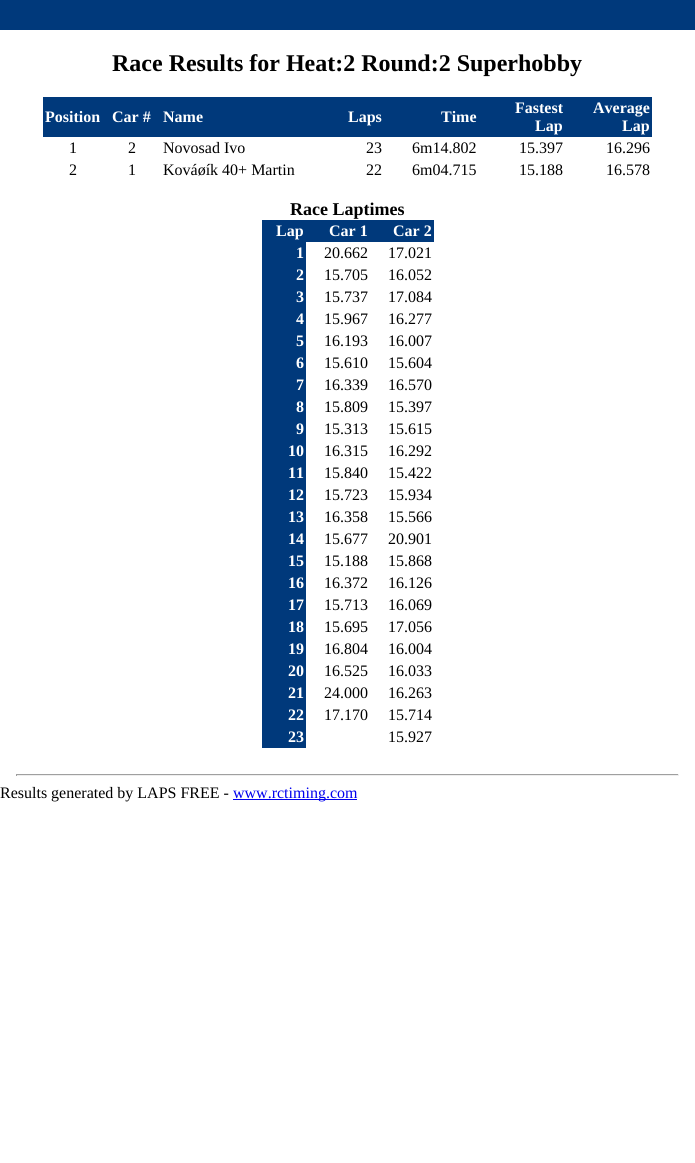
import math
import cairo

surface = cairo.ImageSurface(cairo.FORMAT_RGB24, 695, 1163)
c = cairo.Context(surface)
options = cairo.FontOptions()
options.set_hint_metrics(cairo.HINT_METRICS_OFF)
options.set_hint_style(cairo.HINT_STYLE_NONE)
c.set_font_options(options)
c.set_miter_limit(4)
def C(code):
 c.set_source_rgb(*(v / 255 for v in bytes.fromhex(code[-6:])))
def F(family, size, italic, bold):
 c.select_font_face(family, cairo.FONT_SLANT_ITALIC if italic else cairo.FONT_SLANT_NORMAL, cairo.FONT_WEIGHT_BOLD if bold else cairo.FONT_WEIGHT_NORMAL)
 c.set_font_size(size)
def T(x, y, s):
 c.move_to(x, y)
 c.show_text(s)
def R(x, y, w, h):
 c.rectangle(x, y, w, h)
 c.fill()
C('ffffff')
c.paint()
C('00397b')
R(0,0,695,30)
F('Liberation Serif',24,0,1)
C('000000')
T(112,71,'Race Results for Heat:2 Round:2 Superhobby')
C('00397b')
R(43,97,609,40)
F('Liberation Serif',16,0,1)
C('ffffff')
T(45,122,'Position')
T(112,122,'Car #')
T(163,122,'Name')
T(348,122,'Laps')
T(441,122,'Time')
T(515,113,'Fastest')
T(535,131,'Lap')
T(593,113,'Average')
T(622,131,'Lap')
F('Liberation Serif',16,0,0)
C('000000')
T(69,153,'1')
T(128,153,'2')
T(163,153,'Novosad Ivo')
T(366,153,'23')
T(412,153,'6m14.802')
T(519,153,'15.397')
T(606,153,'16.296')
T(69,175,'2')
T(128,175,'1')
T(163,175,'Kováøík 40+ Martin')
T(366,175,'22')
T(412,175,'6m04.715')
T(519,175,'15.188')
T(606,175,'16.578')
F('Liberation Serif',18,0,1)
T(290,215,'Race Laptimes')
C('00397b')
R(262,220,172,22)
F('Liberation Serif',16,0,1)
C('ffffff')
T(276,236,'Lap')
T(329,236,'Car 1')
T(393,236,'Car 2')
C('00397b')
R(262,242,44,506)
C('ffffff')
T(296,258,'1')
F('Liberation Serif',16,0,0)
C('000000')
T(324,258,'20.662')
T(388,258,'17.021')
F('Liberation Serif',16,0,1)
C('ffffff')
T(296,280,'2')
F('Liberation Serif',16,0,0)
C('000000')
T(324,280,'15.705')
T(388,280,'16.052')
F('Liberation Serif',16,0,1)
C('ffffff')
T(296,302,'3')
F('Liberation Serif',16,0,0)
C('000000')
T(324,302,'15.737')
T(388,302,'17.084')
F('Liberation Serif',16,0,1)
C('ffffff')
T(296,324,'4')
F('Liberation Serif',16,0,0)
C('000000')
T(324,324,'15.967')
T(388,324,'16.277')
F('Liberation Serif',16,0,1)
C('ffffff')
T(296,346,'5')
F('Liberation Serif',16,0,0)
C('000000')
T(324,346,'16.193')
T(388,346,'16.007')
F('Liberation Serif',16,0,1)
C('ffffff')
T(296,368,'6')
F('Liberation Serif',16,0,0)
C('000000')
T(324,368,'15.610')
T(388,368,'15.604')
F('Liberation Serif',16,0,1)
C('ffffff')
T(296,390,'7')
F('Liberation Serif',16,0,0)
C('000000')
T(324,390,'16.339')
T(388,390,'16.570')
F('Liberation Serif',16,0,1)
C('ffffff')
T(296,412,'8')
F('Liberation Serif',16,0,0)
C('000000')
T(324,412,'15.809')
T(388,412,'15.397')
F('Liberation Serif',16,0,1)
C('ffffff')
T(296,434,'9')
F('Liberation Serif',16,0,0)
C('000000')
T(324,434,'15.313')
T(388,434,'15.615')
F('Liberation Serif',16,0,1)
C('ffffff')
T(288,456,'10')
F('Liberation Serif',16,0,0)
C('000000')
T(324,456,'16.315')
T(388,456,'16.292')
F('Liberation Serif',16,0,1)
C('ffffff')
T(288,478,'11')
F('Liberation Serif',16,0,0)
C('000000')
T(324,478,'15.840')
T(388,478,'15.422')
F('Liberation Serif',16,0,1)
C('ffffff')
T(288,500,'12')
F('Liberation Serif',16,0,0)
C('000000')
T(324,500,'15.723')
T(388,500,'15.934')
F('Liberation Serif',16,0,1)
C('ffffff')
T(288,522,'13')
F('Liberation Serif',16,0,0)
C('000000')
T(324,522,'16.358')
T(388,522,'15.566')
F('Liberation Serif',16,0,1)
C('ffffff')
T(288,544,'14')
F('Liberation Serif',16,0,0)
C('000000')
T(324,544,'15.677')
T(388,544,'20.901')
F('Liberation Serif',16,0,1)
C('ffffff')
T(288,566,'15')
F('Liberation Serif',16,0,0)
C('000000')
T(324,566,'15.188')
T(388,566,'15.868')
F('Liberation Serif',16,0,1)
C('ffffff')
T(288,588,'16')
F('Liberation Serif',16,0,0)
C('000000')
T(324,588,'16.372')
T(388,588,'16.126')
F('Liberation Serif',16,0,1)
C('ffffff')
T(288,610,'17')
F('Liberation Serif',16,0,0)
C('000000')
T(324,610,'15.713')
T(388,610,'16.069')
F('Liberation Serif',16,0,1)
C('ffffff')
T(288,632,'18')
F('Liberation Serif',16,0,0)
C('000000')
T(324,632,'15.695')
T(388,632,'17.056')
F('Liberation Serif',16,0,1)
C('ffffff')
T(288,654,'19')
F('Liberation Serif',16,0,0)
C('000000')
T(324,654,'16.804')
T(388,654,'16.004')
F('Liberation Serif',16,0,1)
C('ffffff')
T(288,676,'20')
F('Liberation Serif',16,0,0)
C('000000')
T(324,676,'16.525')
T(388,676,'16.033')
F('Liberation Serif',16,0,1)
C('ffffff')
T(288,698,'21')
F('Liberation Serif',16,0,0)
C('000000')
T(324,698,'24.000')
T(388,698,'16.263')
F('Liberation Serif',16,0,1)
C('ffffff')
T(288,720,'22')
F('Liberation Serif',16,0,0)
C('000000')
T(324,720,'17.170')
T(388,720,'15.714')
F('Liberation Serif',16,0,1)
C('ffffff')
T(288,742,'23')
F('Liberation Serif',16,0,0)
C('000000')
T(388,742,'15.927')
C('9f9f9f')
R(16,774,663,1)
C('eeeeee')
R(678,774,1,2)
R(16,775,663,1)
C('9f9f9f')
R(16,774,1,2)
C('000000')
T(0,798,'Results generated by LAPS FREE -')
C('0000ee')
R(233,799,124,1)
T(233,798,'www.rctiming.com')
surface.write_to_png('o.png')
